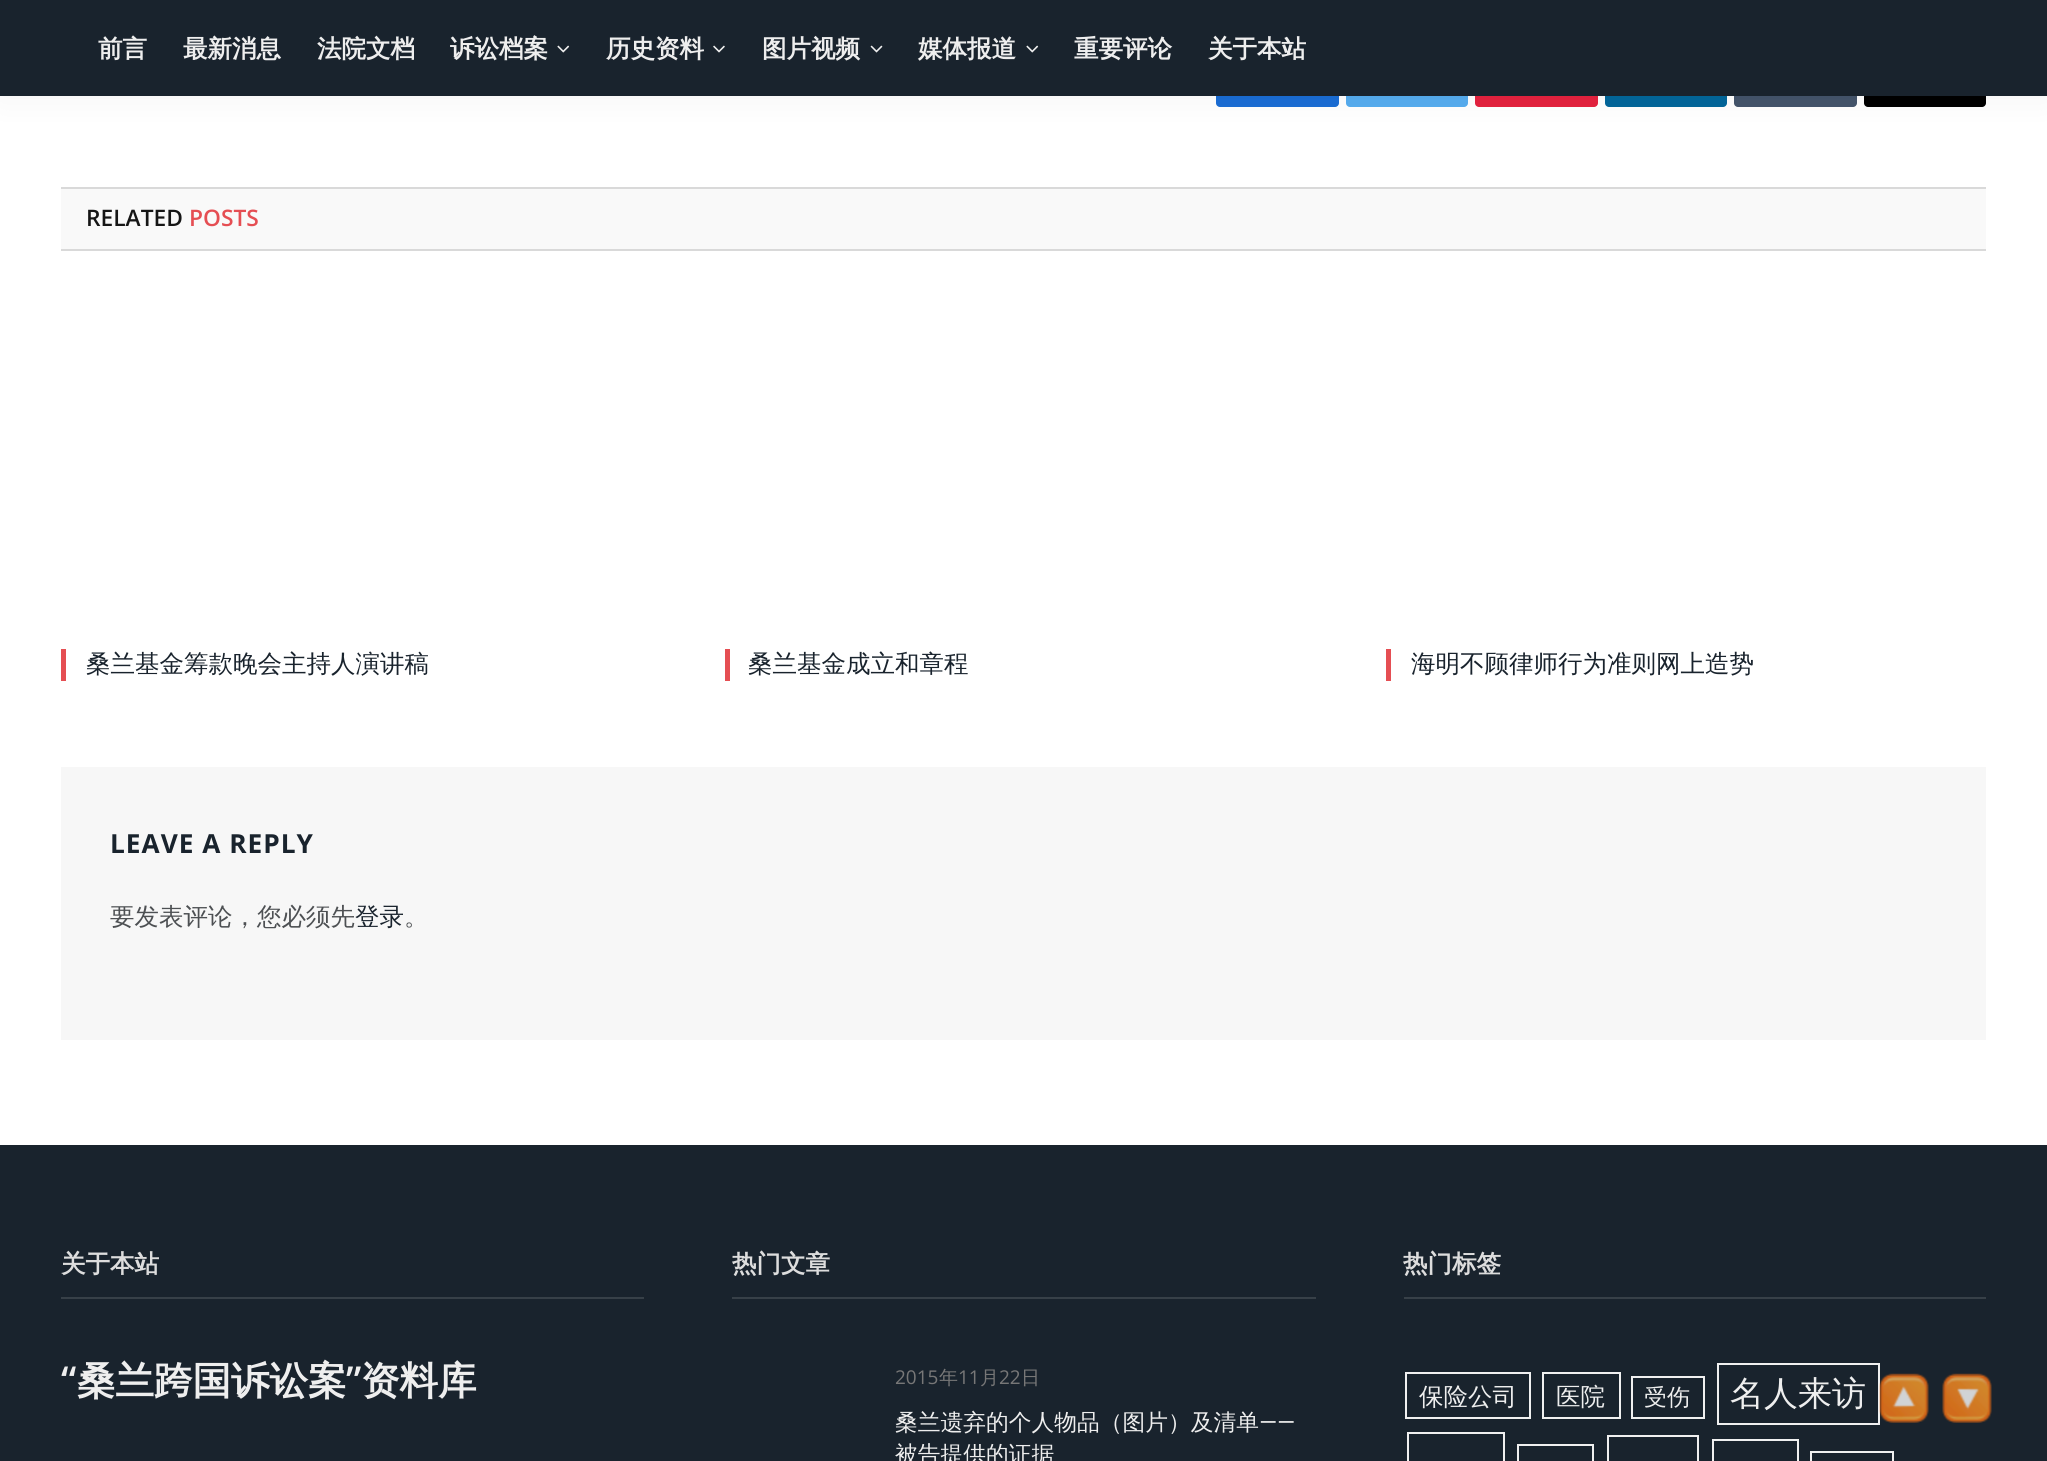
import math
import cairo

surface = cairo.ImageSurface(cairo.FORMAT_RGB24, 2047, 1461)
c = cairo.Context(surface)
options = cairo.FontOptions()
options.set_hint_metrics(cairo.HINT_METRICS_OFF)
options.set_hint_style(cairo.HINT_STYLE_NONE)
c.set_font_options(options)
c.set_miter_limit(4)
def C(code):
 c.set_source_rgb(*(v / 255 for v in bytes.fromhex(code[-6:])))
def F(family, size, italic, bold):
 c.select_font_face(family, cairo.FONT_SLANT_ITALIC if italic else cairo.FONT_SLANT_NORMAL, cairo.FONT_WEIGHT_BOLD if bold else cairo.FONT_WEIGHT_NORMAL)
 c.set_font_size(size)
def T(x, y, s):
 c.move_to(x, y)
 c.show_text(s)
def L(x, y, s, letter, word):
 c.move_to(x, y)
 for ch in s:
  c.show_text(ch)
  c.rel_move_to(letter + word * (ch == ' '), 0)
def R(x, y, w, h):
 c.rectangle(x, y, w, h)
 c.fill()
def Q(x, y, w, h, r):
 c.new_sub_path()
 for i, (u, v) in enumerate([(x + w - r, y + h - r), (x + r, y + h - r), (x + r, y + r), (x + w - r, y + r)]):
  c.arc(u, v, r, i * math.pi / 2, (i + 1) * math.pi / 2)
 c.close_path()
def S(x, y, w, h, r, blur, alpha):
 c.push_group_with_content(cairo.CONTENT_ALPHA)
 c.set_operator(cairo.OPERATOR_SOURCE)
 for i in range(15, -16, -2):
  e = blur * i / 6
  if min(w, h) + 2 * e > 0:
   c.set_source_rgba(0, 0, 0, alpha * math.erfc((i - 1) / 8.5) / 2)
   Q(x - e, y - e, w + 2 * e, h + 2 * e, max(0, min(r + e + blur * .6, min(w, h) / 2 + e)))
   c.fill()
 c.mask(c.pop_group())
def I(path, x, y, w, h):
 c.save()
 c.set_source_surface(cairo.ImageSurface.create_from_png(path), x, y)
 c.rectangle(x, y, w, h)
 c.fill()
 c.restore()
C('ffffff')
c.paint()
C('1a6dd4')
Q(1216,51,123,56,4)
c.fill()
C('55acef')
Q(1346,51,122,56,4)
c.fill()
C('e4223e')
Q(1475,51,123,56,4)
c.fill()
C('02669a')
Q(1605,51,122,56,4)
c.fill()
C('44546b')
Q(1734,51,123,56,4)
c.fill()
C('000000')
Q(1864,51,122,56,4)
c.fill()
C('000000')
S(0,0,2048,96,0,17.5,.05)
C('19232d')
R(0,0,2047,96)
F('WenQuanYi Zen Hei',24.5,0,1)
C('eeeeee')
T(98,57,'前言')
T(183,57,'最新消息')
T(317,57,'法院文档')
T(450,57,'诉讼档案')
I('1.png',557,45,13,8)
T(606,57,'历史资料')
I('2.png',713,45,12,8)
T(762,57,'图片视频')
I('3.png',870,45,13,8)
T(918,57,'媒体报道')
I('1.png',1026,45,13,8)
T(1074,57,'重要评论')
T(1208,57,'关于本站')
C('f9f9f9')
R(61,189,1925,60)
C('d9d9d9')
R(61,187,1925,2)
R(61,249,1925,2)
F('Open Sans SemiBold',22.75,0,0)
C('161616')
T(86,226,'RELATED')
C('e54e53')
T(189,226,'POSTS')
R(61,649,5,32)
F('WenQuanYi Zen Hei Medium',24.5,0,0)
C('19232d')
T(86,672,'桑兰基金筹款晚会主持人演讲稿')
C('e54e53')
R(725,649,5,32)
C('19232d')
T(748,672,'桑兰基金成立和章程')
C('e54e53')
R(1386,649,5,32)
C('19232d')
T(1411,672,'海明不顾律师行为准则网上造势')
C('f7f7f7')
R(61,767,1925,273)
F('Open Sans',26.25,0,1)
C('19232d')
L(110,853,'LEAVE A REPLY',1,0)
F('WenQuanYi Zen Hei Medium',24.5,0,0)
C('4d5053')
T(110,925,'要发表评论，您必须先')
C('19232d')
T(355,925,'登录')
C('4d5053')
T(404,925,'。')
C('19232d')
R(0,1145,2047,316)
C('374048')
R(61,1297,583,2)
F('WenQuanYi Zen Hei',24.5,0,1)
C('dddddd')
T(61,1272,'关于本站')
F('Open Sans SemiBold',38.5,0,0)
C('eeeeee')
T(61,1394,'“')
F('WenQuanYi Zen Hei',38.5,0,1)
T(77,1394,'桑兰跨国诉讼案')
F('Open Sans SemiBold',38.5,0,0)
T(346,1394,'”')
F('WenQuanYi Zen Hei',38.5,0,1)
T(361,1394,'资料库')
C('374048')
R(732,1297,584,2)
F('WenQuanYi Zen Hei',24.5,0,1)
C('dddddd')
T(732,1272,'热门文章')
F('Open Sans',19,0,0)
C('777777')
T(895,1384,'2015')
F('WenQuanYi Zen Hei Medium',19,0,0)
T(939,1384,'年')
F('Open Sans',19,0,0)
T(958,1384,'11')
F('WenQuanYi Zen Hei Medium',19,0,0)
T(980,1384,'月')
F('Open Sans',19,0,0)
T(999,1384,'22')
F('WenQuanYi Zen Hei Medium',19,0,0)
T(1021,1384,'日')
F('WenQuanYi Zen Hei Medium',22.75,0,0)
C('eeeeee')
T(895,1430,'桑兰遗弃的个人物品（图片）及清单')
F('Roboto Slab',22.75,0,0)
T(1259,1430,'——')
F('WenQuanYi Zen Hei Medium',22.75,0,0)
T(895,1462,'被告提供的证据')
C('374048')
R(1404,1297,582,2)
F('WenQuanYi Zen Hei',24.5,0,1)
C('dddddd')
T(1403,1272,'热门标签')
c.rectangle(1406,1373,124,45)
C('f0f0f0')
c.stroke()
F('WenQuanYi Zen Hei Medium',24.5,0,0)
C('eeeeee')
T(1419,1405,'保险公司')
c.rectangle(1543,1373,77,45)
C('f0f0f0')
c.stroke()
C('eeeeee')
T(1556,1405,'医院')
c.rectangle(1632,1377,72,41)
C('f0f0f0')
c.stroke()
F('WenQuanYi Zen Hei Medium',23,0,0)
C('eeeeee')
T(1644,1405,'受伤')
c.rectangle(1718,1364,161,60)
C('f0f0f0')
c.stroke()
F('WenQuanYi Zen Hei Medium',34,0,0)
C('eeeeee')
T(1730,1405,'名人来访')
c.rectangle(1408,1433,96,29)
C('f0f0f0')
c.stroke()
c.rectangle(1518,1445,75,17)
c.stroke()
c.rectangle(1608,1436,90,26)
c.stroke()
c.rectangle(1713,1440,85,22)
c.stroke()
c.rectangle(1811,1452,82,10)
c.stroke()
I('4.png',1879,1373,50,50)
I('5.png',1942,1373,50,50)
surface.write_to_png('o.png')
